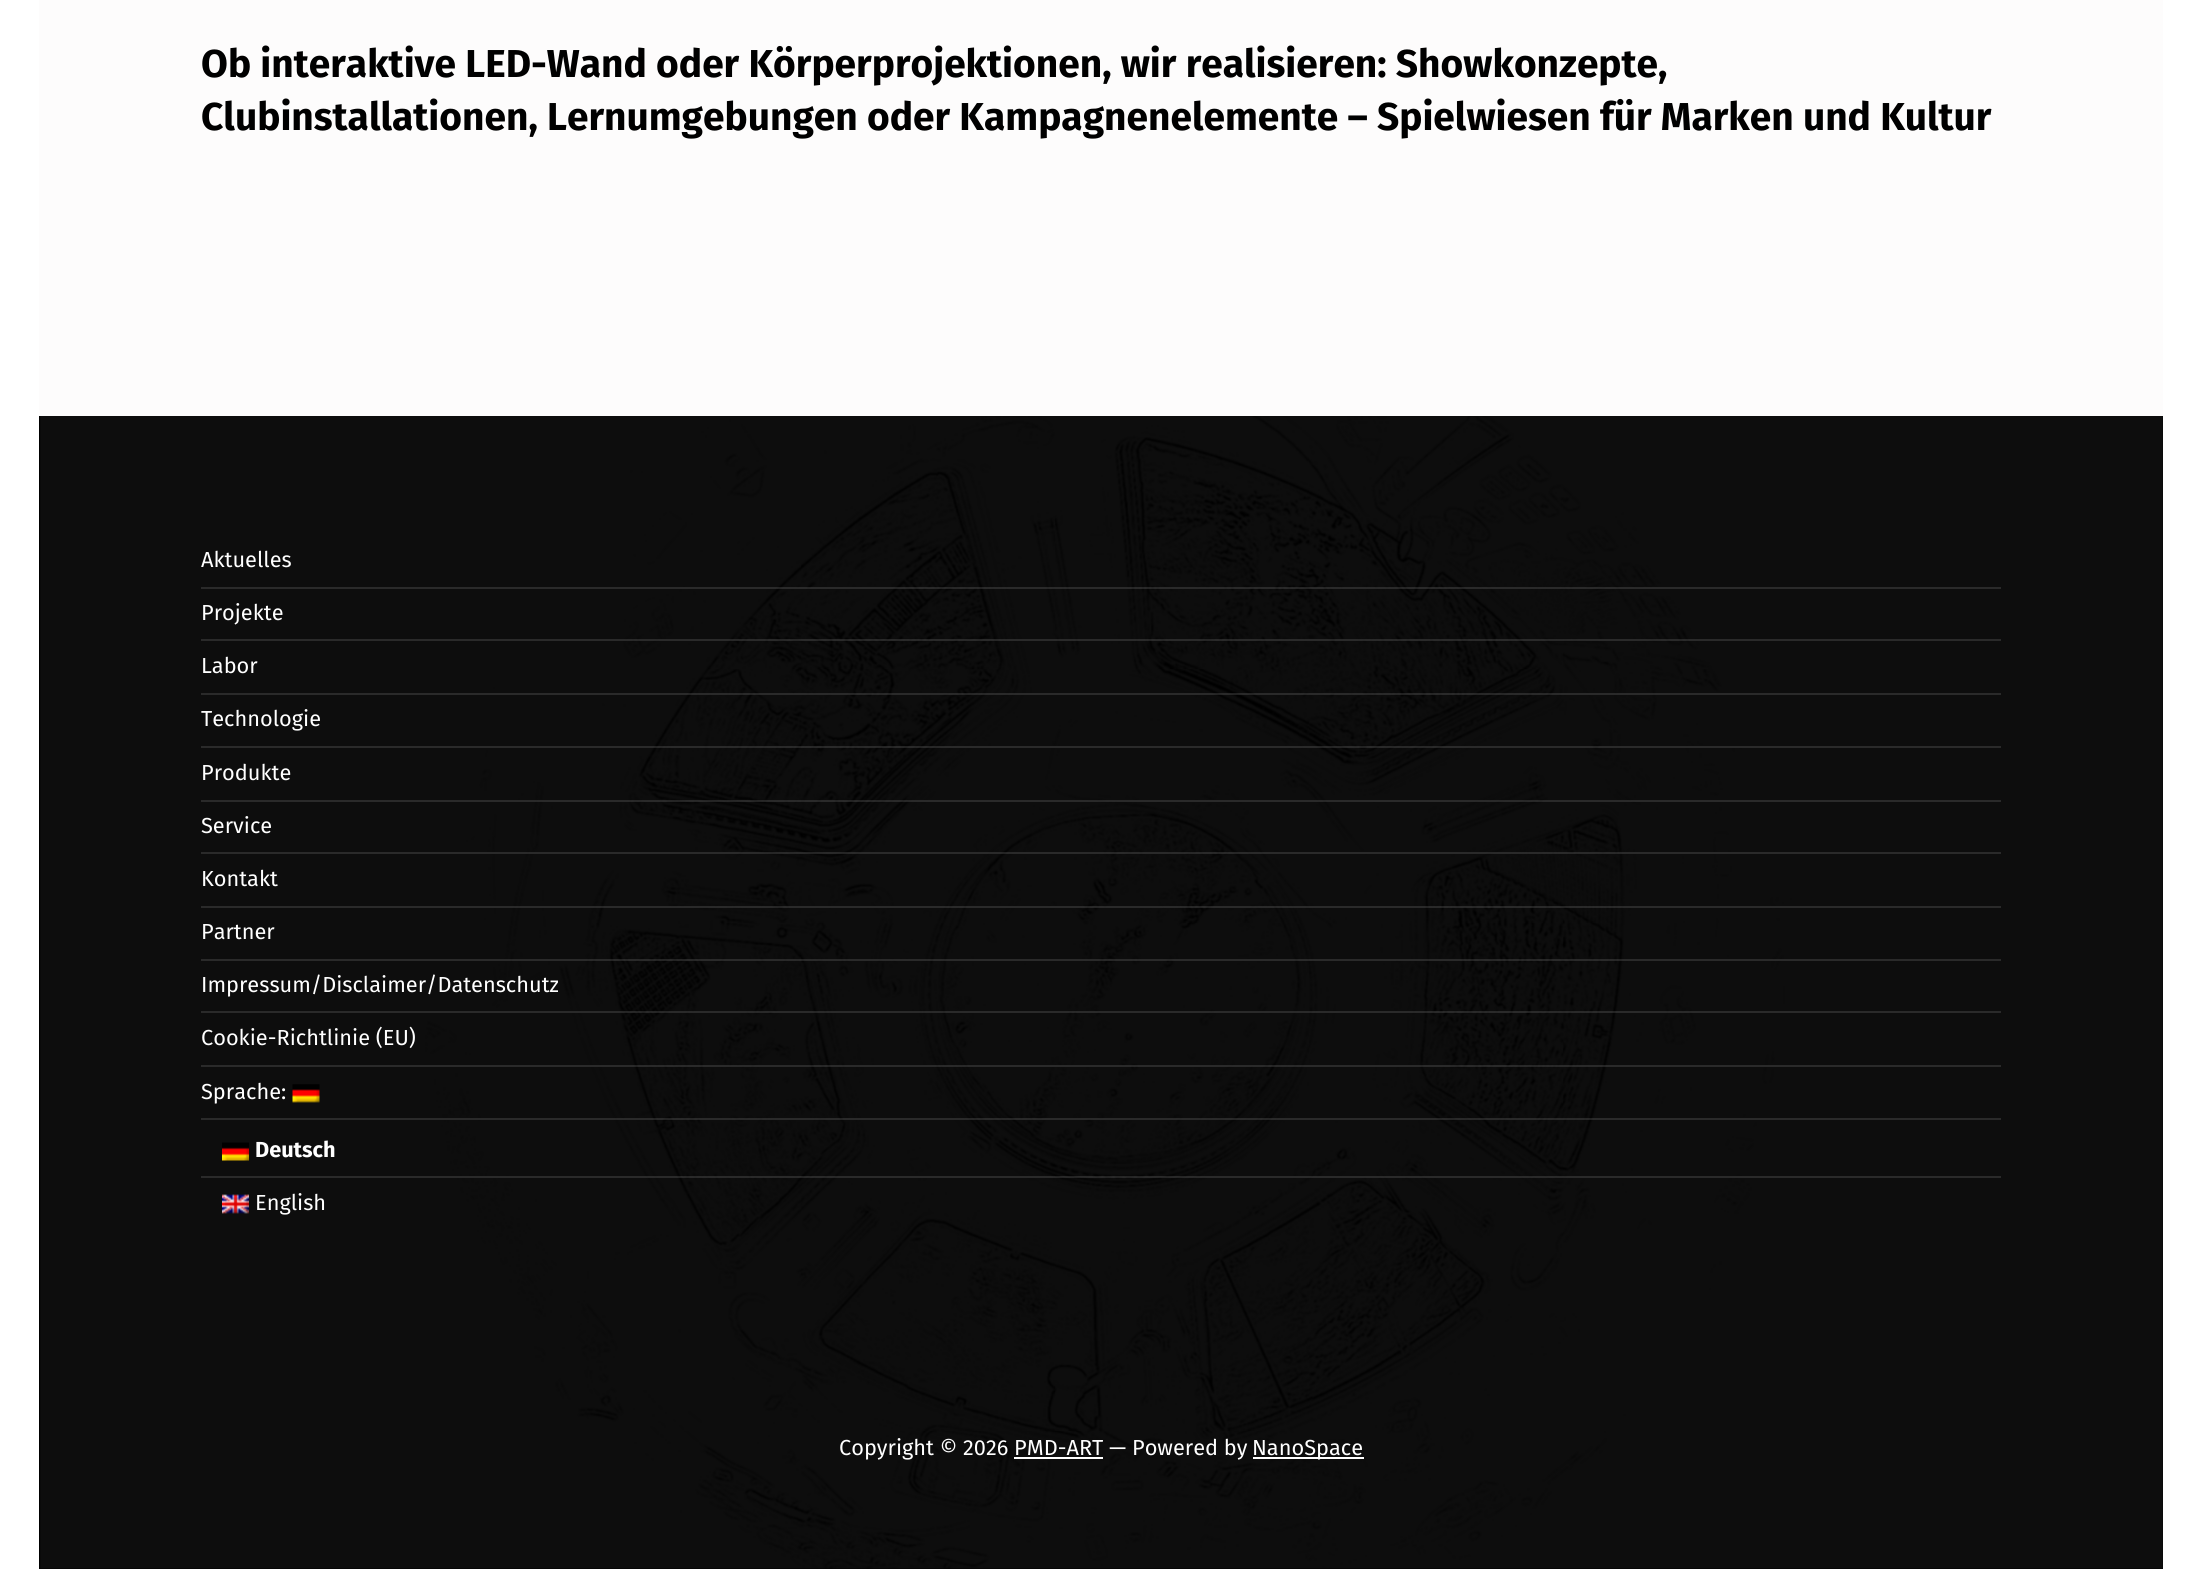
import math
import cairo

surface = cairo.ImageSurface(cairo.FORMAT_RGB24, 2202, 1592)
c = cairo.Context(surface)
options = cairo.FontOptions()
options.set_hint_metrics(cairo.HINT_METRICS_OFF)
options.set_hint_style(cairo.HINT_STYLE_NONE)
c.set_font_options(options)
c.set_miter_limit(4)
def C(code):
 c.set_source_rgb(*(v / 255 for v in bytes.fromhex(code[-6:])))
def F(family, size, italic, bold):
 c.select_font_face(family, cairo.FONT_SLANT_ITALIC if italic else cairo.FONT_SLANT_NORMAL, cairo.FONT_WEIGHT_BOLD if bold else cairo.FONT_WEIGHT_NORMAL)
 c.set_font_size(size)
def T(x, y, s):
 c.move_to(x, y)
 c.show_text(s)
def R(x, y, w, h):
 c.rectangle(x, y, w, h)
 c.fill()
def I(path, x, y, w, h):
 c.save()
 c.set_source_surface(cairo.ImageSurface.create_from_png(path), x, y)
 c.rectangle(x, y, w, h)
 c.fill()
 c.restore()
C('ffffff')
c.paint()
C('fdfcfc')
R(39,0,2124,416)
F('Fira Sans',38.9,0,1)
C('000000')
T(201,77,'Ob interaktive LED-Wand oder Körperprojektionen, wir realisieren: Showkonzepte,')
T(201,130,'Clubinstallationen, Lernumgebungen oder Kampagnenelemente – Spielwiesen für Marken und Kultur')
R(39,416,2124,1153)
I('1.png',40,416,2123,1153)
F('Fira Sans',21.75,0,0)
C('ffffff')
T(201,567,'Aktuelles')
c.set_source_rgba(0.643,0.639,0.639,0.2)
R(201,587,1800,2)
C('ffffff')
T(201,620,'Projekte')
c.set_source_rgba(0.643,0.639,0.639,0.2)
R(201,639,1800,2)
C('ffffff')
T(201,673,'Labor')
c.set_source_rgba(0.643,0.639,0.639,0.2)
R(201,693,1800,2)
C('ffffff')
T(201,726,'Technologie')
c.set_source_rgba(0.643,0.639,0.639,0.2)
R(201,746,1800,2)
C('ffffff')
T(201,780,'Produkte')
c.set_source_rgba(0.643,0.639,0.639,0.2)
R(201,800,1800,2)
C('ffffff')
T(201,833,'Service')
c.set_source_rgba(0.643,0.639,0.639,0.2)
R(201,852,1800,2)
C('ffffff')
T(201,886,'Kontakt')
c.set_source_rgba(0.643,0.639,0.639,0.2)
R(201,906,1800,2)
C('ffffff')
T(201,939,'Partner')
c.set_source_rgba(0.643,0.639,0.639,0.2)
R(201,959,1800,2)
C('ffffff')
T(201,992,'Impressum/Disclaimer/Datenschutz')
c.set_source_rgba(0.643,0.639,0.639,0.2)
R(201,1011,1800,2)
C('ffffff')
T(201,1045,'Cookie-Richtlinie (EU)')
c.set_source_rgba(0.643,0.639,0.639,0.2)
R(201,1065,1800,2)
C('ffffff')
T(201,1099,'Sprache:')
I('2.png',292,1084,28,19)
c.set_source_rgba(0.643,0.639,0.639,0.2)
R(201,1118,1800,2)
I('3.png',222,1142,27,19)
F('Fira Sans',21.75,0,1)
C('ffffff')
T(255,1157,'Deutsch')
c.set_source_rgba(0.643,0.639,0.639,0.2)
R(201,1176,1800,2)
I('4.png',222,1194,27,20)
F('Fira Sans',21.75,0,0)
C('ffffff')
T(255,1210,'English')
T(839,1455,'Copyright © 2026 PMD-ART — Powered by')
R(1253,1457,111,2)
T(1252,1455,'NanoSpace')
R(1014,1457,89,2)
surface.write_to_png('o.png')
